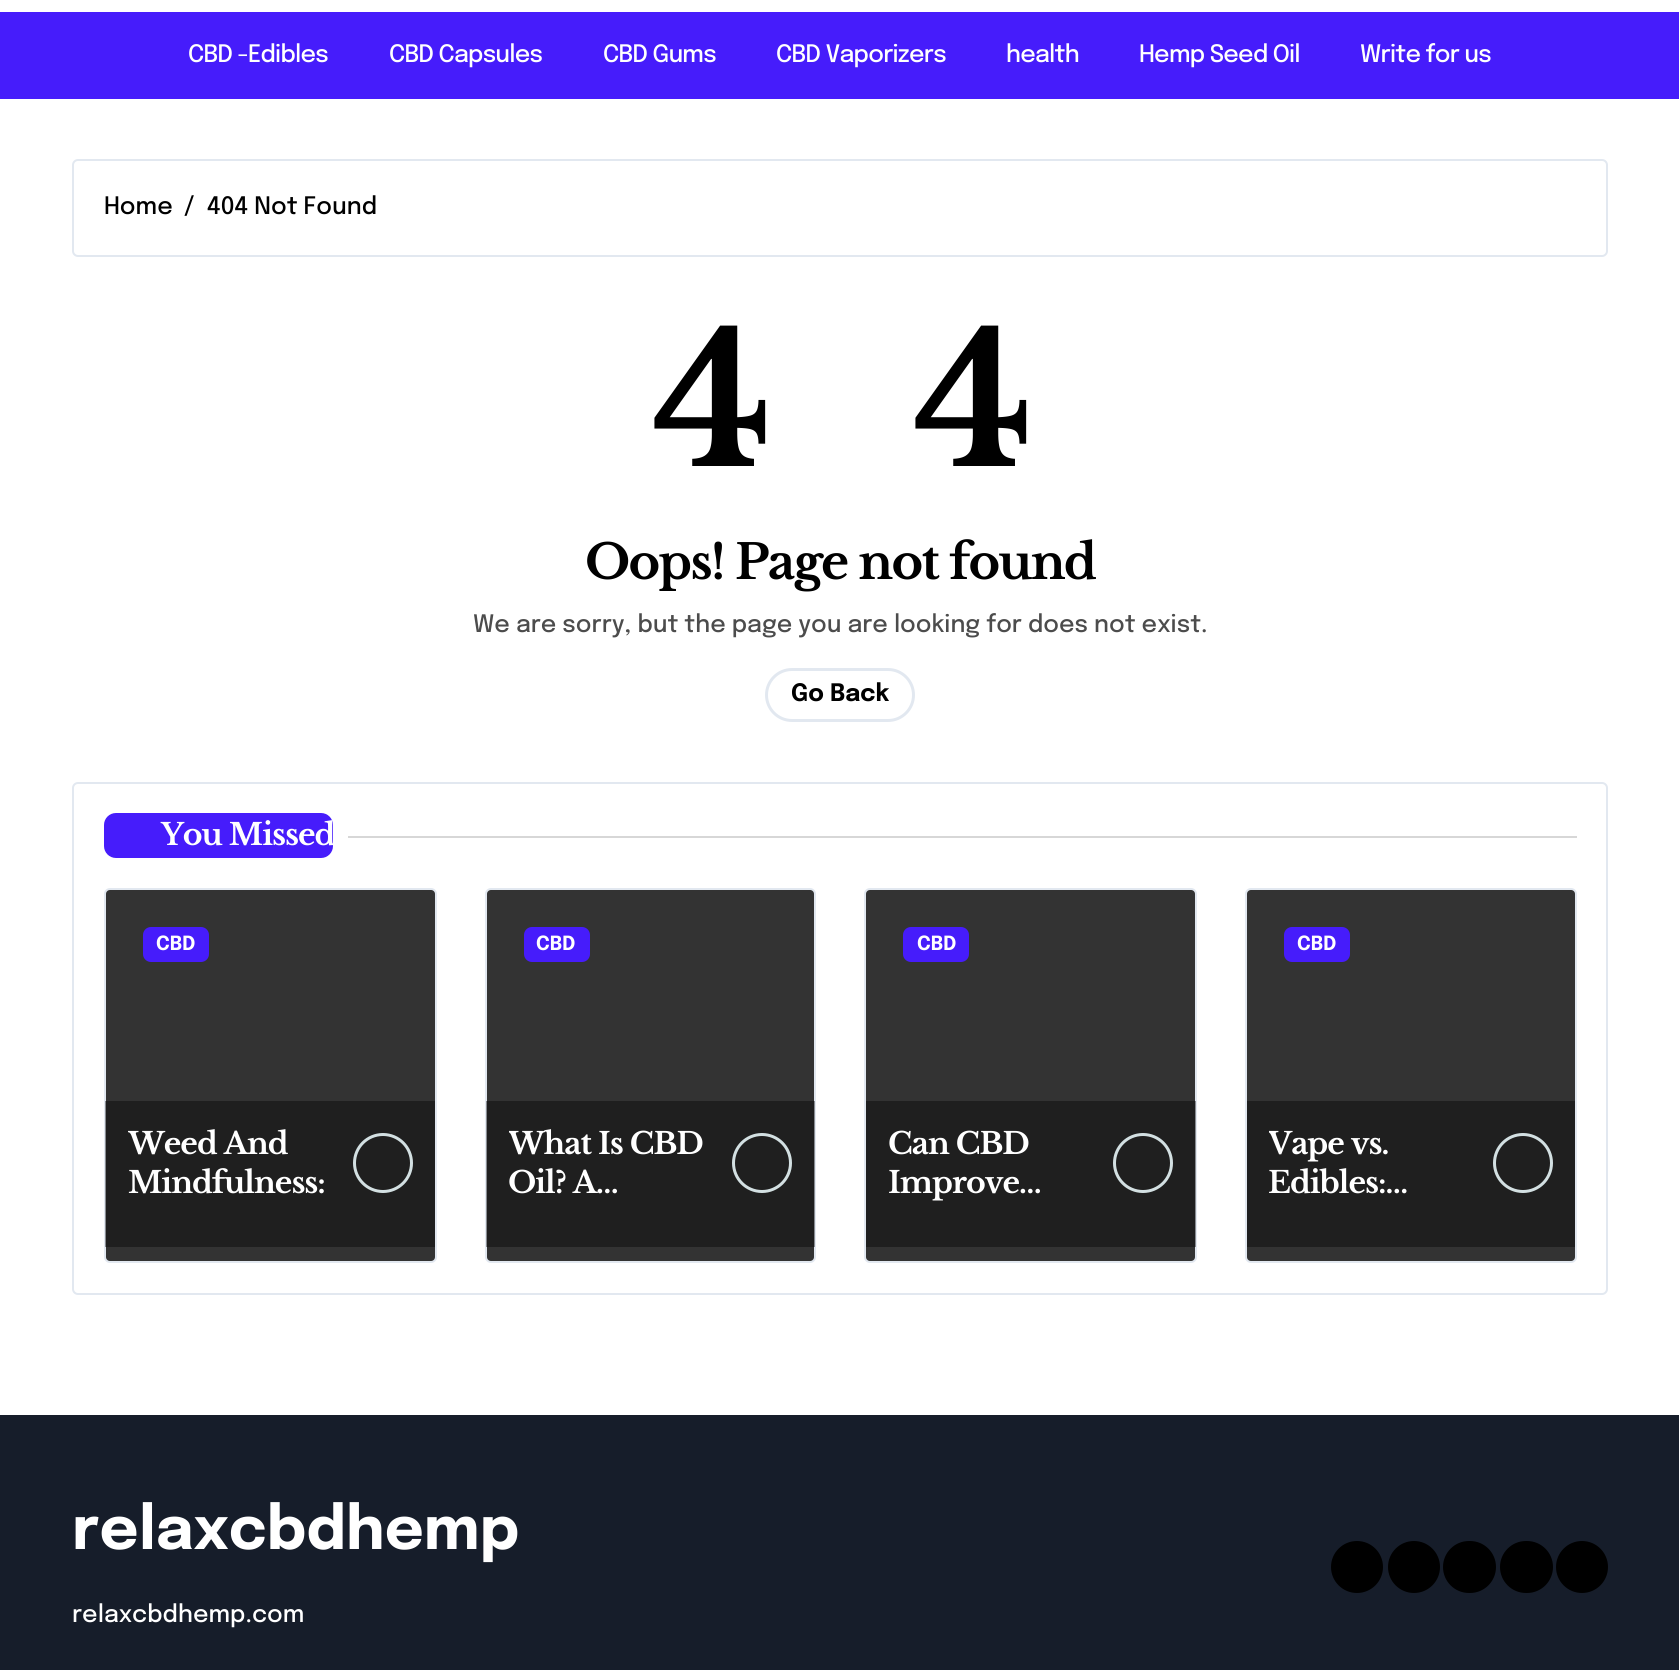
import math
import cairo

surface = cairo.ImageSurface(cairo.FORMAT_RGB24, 1679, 1670)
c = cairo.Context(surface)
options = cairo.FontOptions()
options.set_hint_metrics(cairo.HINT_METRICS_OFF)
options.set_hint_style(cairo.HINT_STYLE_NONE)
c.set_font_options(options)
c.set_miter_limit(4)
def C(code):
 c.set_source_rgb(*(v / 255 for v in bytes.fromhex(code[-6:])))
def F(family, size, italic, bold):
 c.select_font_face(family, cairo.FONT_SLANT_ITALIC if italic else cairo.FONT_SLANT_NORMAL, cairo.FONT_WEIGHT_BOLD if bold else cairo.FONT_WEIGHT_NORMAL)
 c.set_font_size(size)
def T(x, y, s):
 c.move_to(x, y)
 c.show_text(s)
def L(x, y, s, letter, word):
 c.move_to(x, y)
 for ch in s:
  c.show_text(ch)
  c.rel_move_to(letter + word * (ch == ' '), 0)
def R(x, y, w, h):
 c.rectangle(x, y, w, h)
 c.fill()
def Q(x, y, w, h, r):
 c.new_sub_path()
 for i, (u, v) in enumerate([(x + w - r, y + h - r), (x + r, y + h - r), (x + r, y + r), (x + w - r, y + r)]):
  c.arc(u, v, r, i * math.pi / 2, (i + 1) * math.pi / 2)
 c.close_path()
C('ffffff')
c.paint()
C('461cfb')
R(0,12,1679,87)
F('Epilogue Medium',24,0,0)
C('ffffff')
L(188,62,'CBD -Edibles',-.75,0)
L(389,62,'CBD Capsules',-.75,0)
L(603,62,'CBD Gums',-.75,0)
L(776,62,'CBD Vaporizers',-.75,0)
L(1006,62,'health',-.75,0)
L(1139,62,'Hemp Seed Oil',-.75,0)
L(1360,62,'Write for us',-.75,0)
Q(73,160,1534,96,5)
C('e2e8f0')
c.stroke()
C('000000')
T(104,214,'Home')
T(184,214,'/')
T(207,214,'404 Not Found')
F('Libre Baskerville',180,0,1)
L(653,466,'4',-6,0)
L(914,466,'4',-6,0)
F('Libre Baskerville',48,0,1)
L(585,579,'Oops! Page not found',-1.75,0)
F('Epilogue Medium',24,0,0)
C('4c4c4c')
T(473,632,'We are sorry, but the page you are looking for does not exist.')
Q(766.5,669.5,147,51,25.5)
C('e2e8f0')
c.set_line_width(3)
c.stroke()
F('Epilogue',24,0,1)
C('000000')
T(791,701,'Go Back')
Q(73,783,1534,511,5)
C('e2e8f0')
c.set_line_width(2)
c.stroke()
C('461cfb')
Q(104,813,229,45,12)
c.fill()
F('Libre Baskerville',30,0,1)
C('ffffff')
L(161,845,'You Missed',-1,0)
C('d7d7d7')
R(348,836,1229,2)
C('333333')
Q(105,889,331,373,5)
c.fill_preserve()
C('e2e8f0')
c.stroke()
C('461cfb')
Q(144,928,64,33,7)
c.fill_preserve()
c.stroke()
F('Epilogue',19.5,0,1)
C('ffffff')
T(156,950,'CBD')
c.set_source_rgba(0,0,0,0.4)
R(105,1101,330,146)
c.save()
c.rectangle(128,1124,202,78)
c.clip()
F('Libre Baskerville',30,0,1)
C('ffffff')
L(128,1154,'Weed And',-1,0)
c.restore()
F('Libre Baskerville',30,0,1)
C('ffffff')
L(128,1193,'Mindfulness:',-1,0)
c.new_path()
c.arc(383,1163,28.5,0,2 * math.pi)
C('d3e0e2')
c.set_line_width(3)
c.stroke()
C('333333')
Q(486,889,329,373,5)
c.fill_preserve()
C('e2e8f0')
c.set_line_width(2)
c.stroke()
C('461cfb')
Q(525,928,64,33,7)
c.fill_preserve()
c.stroke()
F('Epilogue',19.5,0,1)
C('ffffff')
T(536,950,'CBD')
c.set_source_rgba(0,0,0,0.4)
R(486,1101,329,146)
c.save()
c.rectangle(509,1124,201,78)
c.clip()
F('Libre Baskerville',30,0,1)
C('ffffff')
L(508,1154,'What Is CBD',-1,0)
c.restore()
F('Libre Baskerville',30,0,1)
C('ffffff')
L(508,1193,'Oil? A…',-1,0)
c.new_path()
c.arc(762,1163,28.5,0,2 * math.pi)
C('d3e0e2')
c.set_line_width(3)
c.stroke()
C('333333')
Q(865,889,331,373,5)
c.fill_preserve()
C('e2e8f0')
c.set_line_width(2)
c.stroke()
C('461cfb')
Q(904,928,64,33,7)
c.fill_preserve()
c.stroke()
F('Epilogue',19.5,0,1)
C('ffffff')
T(917,950,'CBD')
c.set_source_rgba(0,0,0,0.4)
R(866,1101,330,146)
F('Libre Baskerville',30,0,1)
C('ffffff')
L(888,1154,'Can CBD',-1,0)
L(888,1193,'Improve…',-1,0)
c.new_path()
c.arc(1143,1163,28.5,0,2 * math.pi)
C('d3e0e2')
c.set_line_width(3)
c.stroke()
C('333333')
Q(1246,889,330,373,5)
c.fill_preserve()
C('e2e8f0')
c.set_line_width(2)
c.stroke()
C('461cfb')
Q(1285,928,64,33,7)
c.fill_preserve()
c.stroke()
F('Epilogue',19.5,0,1)
C('ffffff')
T(1297,950,'CBD')
C('1f1f1f')
R(1247,1101,328,146)
c.save()
c.rectangle(1269,1124,201,78)
c.clip()
F('Libre Baskerville',30,0,1)
C('ffffff')
L(1268,1154,'Vape vs.',-1,0)
c.restore()
F('Libre Baskerville',30,0,1)
C('ffffff')
L(1268,1193,'Edibles:…',-1,0)
c.new_path()
c.arc(1523,1163,28.5,0,2 * math.pi)
C('d3e0e2')
c.set_line_width(3)
c.stroke()
C('161d2a')
R(0,1415,1679,255)
F('Epilogue',60,0,1)
C('ffffff')
T(72,1549,'relaxcbdhemp')
F('Epilogue Medium',24,0,0)
T(72,1622,'relaxcbdhemp.com')
C('000000')
c.new_path()
c.arc(1357,1567,26,0,2 * math.pi)
c.fill()
c.arc(1414,1567,26,0,2 * math.pi)
c.fill()
Q(1443,1541,53,52,26)
c.fill()
Q(1500,1541,53,52,26)
c.fill()
c.arc(1582,1567,26,0,2 * math.pi)
c.fill()
surface.write_to_png('o.png')
